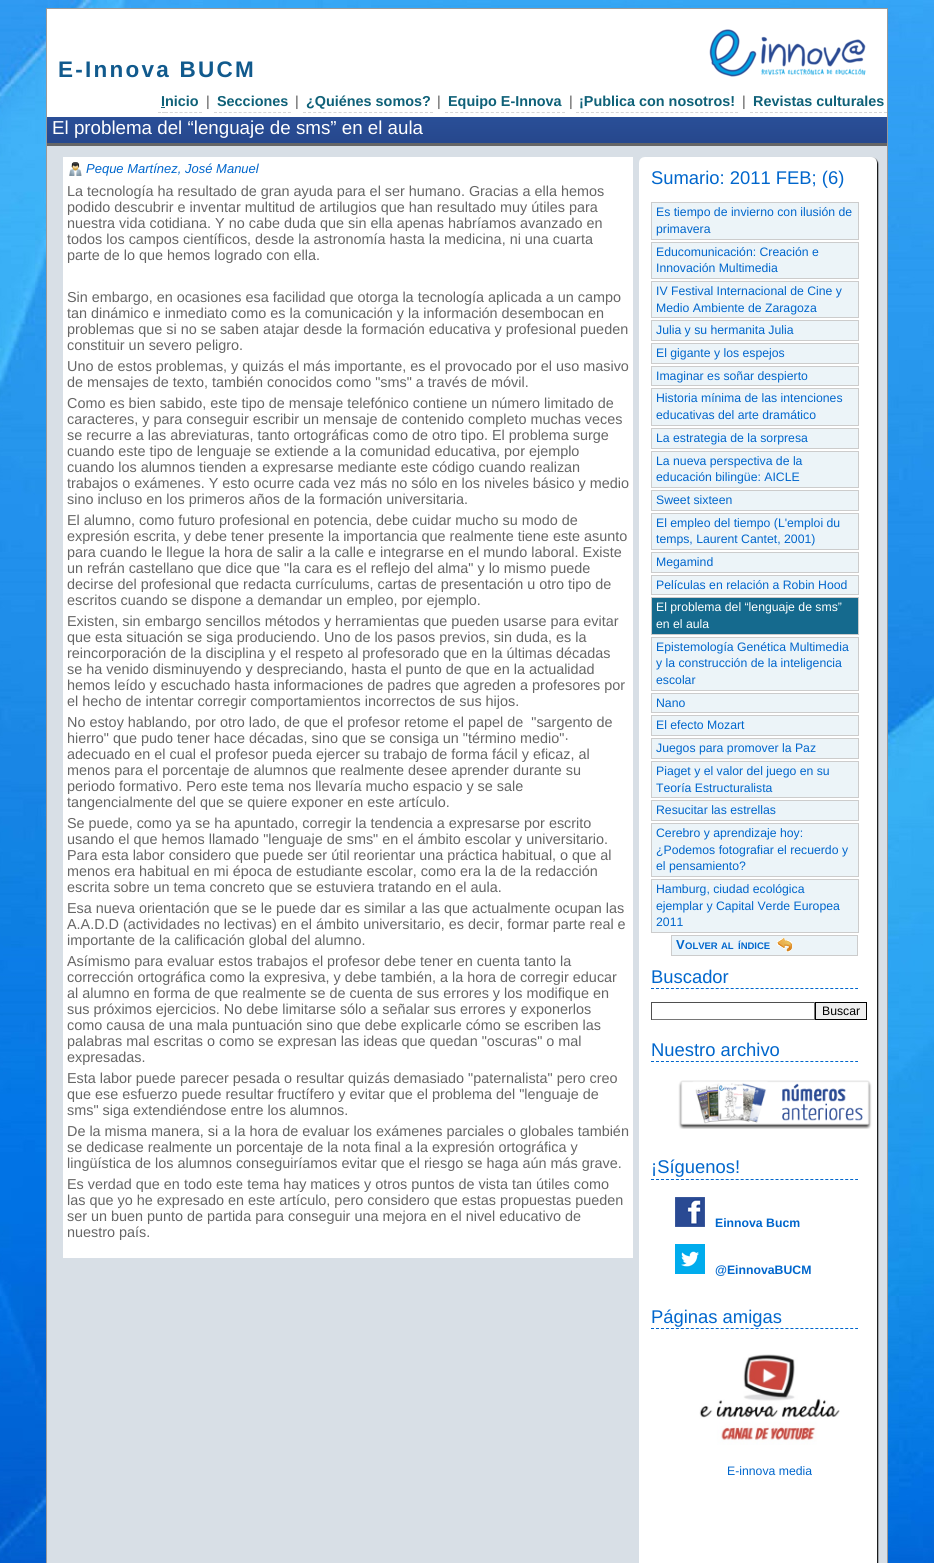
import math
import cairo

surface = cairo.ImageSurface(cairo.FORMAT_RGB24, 934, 1563)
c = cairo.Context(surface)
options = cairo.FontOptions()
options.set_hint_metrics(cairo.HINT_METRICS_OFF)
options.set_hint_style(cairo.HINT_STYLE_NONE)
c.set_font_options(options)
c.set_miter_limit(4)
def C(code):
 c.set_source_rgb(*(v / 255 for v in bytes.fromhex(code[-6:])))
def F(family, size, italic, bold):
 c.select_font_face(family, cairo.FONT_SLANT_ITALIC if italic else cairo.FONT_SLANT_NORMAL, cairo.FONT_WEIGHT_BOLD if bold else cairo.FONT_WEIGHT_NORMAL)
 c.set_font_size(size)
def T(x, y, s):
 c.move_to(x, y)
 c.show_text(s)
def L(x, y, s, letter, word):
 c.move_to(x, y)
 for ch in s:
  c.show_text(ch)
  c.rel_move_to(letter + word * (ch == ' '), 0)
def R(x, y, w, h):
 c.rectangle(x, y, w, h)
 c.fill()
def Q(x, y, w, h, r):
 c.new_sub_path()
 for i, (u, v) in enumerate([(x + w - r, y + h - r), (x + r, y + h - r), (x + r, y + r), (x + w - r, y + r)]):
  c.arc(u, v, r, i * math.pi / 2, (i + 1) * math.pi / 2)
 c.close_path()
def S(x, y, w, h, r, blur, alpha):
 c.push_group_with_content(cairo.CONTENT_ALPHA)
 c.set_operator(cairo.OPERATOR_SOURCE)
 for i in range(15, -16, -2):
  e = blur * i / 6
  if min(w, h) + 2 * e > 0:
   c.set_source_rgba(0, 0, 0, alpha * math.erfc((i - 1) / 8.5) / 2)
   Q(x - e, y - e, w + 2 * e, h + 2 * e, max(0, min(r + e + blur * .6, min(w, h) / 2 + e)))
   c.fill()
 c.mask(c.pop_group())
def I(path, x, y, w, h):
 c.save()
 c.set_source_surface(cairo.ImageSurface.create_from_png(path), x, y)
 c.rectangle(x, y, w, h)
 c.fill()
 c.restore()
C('ffffff')
c.paint()
I('1.png',0,0,934,1563)
c.rectangle(46.5,8.5,841,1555)
C('999999')
c.set_line_width(1)
c.stroke()
C('ffffff')
R(47,9,840,108)
I('2.png',709,29,157,48)
F('Liberation Sans',22.5,0,1)
C('115a8d')
L(58,77,'E-Innova BUCM',2.25,0)
F('Liberation Sans',14.4,0,1)
C('0f6178')
T(161,106,'Inicio')
c.new_path()
c.move_to(158,112.5)
c.line_to(161,112.5)
c.move_to(162,112.5)
c.line_to(165,112.5)
C('d6d6d6')
c.stroke()
c.new_path()
c.move_to(165,112.5)
c.line_to(202,112.5)
c.set_dash([3,1.86])
c.stroke()
C('0f6178')
R(161,107,4,1)
F('Liberation Sans',14.4,0,0)
C('575757')
T(206,106,'|')
F('Liberation Sans',14.4,0,1)
C('0f6178')
T(217,106,'Secciones')
c.new_path()
c.move_to(214,112.5)
c.line_to(291,112.5)
C('d6d6d6')
c.set_dash([3,1.93])
c.stroke()
F('Liberation Sans',14.4,0,0)
C('575757')
T(295,106,'|')
F('Liberation Sans',14.4,0,1)
C('0f6178')
T(306,106,'¿Quiénes somos?')
c.new_path()
c.move_to(303,112.5)
c.line_to(433,112.5)
C('d6d6d6')
c.set_dash([3,2.08])
c.stroke()
F('Liberation Sans',14.4,0,0)
C('575757')
T(437,106,'|')
F('Liberation Sans',14.4,0,1)
C('0f6178')
T(448,106,'Equipo E-Innova')
c.new_path()
c.move_to(445,112.5)
c.line_to(565,112.5)
C('d6d6d6')
c.set_dash([3,2.09])
c.stroke()
F('Liberation Sans',14.4,0,0)
C('575757')
T(569,106,'|')
F('Liberation Sans',14.4,0,1)
C('0f6178')
T(579,106,'¡Publica con nosotros!')
c.new_path()
c.move_to(576,112.5)
c.line_to(738,112.5)
C('d6d6d6')
c.set_dash([3,1.97])
c.stroke()
F('Liberation Sans',14.4,0,0)
C('575757')
T(742,106,'|')
F('Liberation Sans',14.4,0,1)
C('0f6178')
T(753,106,'Revistas culturales')
c.new_path()
c.move_to(750,112.5)
c.line_to(887,112.5)
C('d6d6d6')
c.set_dash([3,1.96])
c.stroke()
C('d8dfe6')
R(47,146,840,1417)
I('3.png',47,117,840,26)
C('666666')
R(47,143,840,3)
F('Liberation Sans',18.75,0,0)
C('ffffff')
T(52,134,'El problema del “lenguaje de sms” en el aula')
R(63,157,570,1101)
I('4.png',69,162,13,14)
F('Liberation Sans',13,1,0)
C('0066cc')
T(86,173,'Peque Martínez, José Manuel')
F('Liberation Sans',14.4,0,0)
C('666666')
T(67,196,'La tecnología ha resultado de gran ayuda para el ser humano. Gracias a ella hemos')
T(67,212,'podido descubrir e inventar multitud de artilugios que han resultado muy útiles para')
T(67,228,'nuestra vida cotidiana. Y no cabe duda que sin ella apenas habríamos avanzado en')
T(67,244,'todos los campos científicos, desde la astronomía hasta la medicina, ni una cuarta')
T(67,260,'parte de lo que hemos logrado con ella.')
T(67,302,'Sin embargo, en ocasiones esa facilidad que otorga la tecnología aplicada a un campo')
T(67,318,'tan dinámico e inmediato como es la comunicación y la información desembocan en')
T(67,334,'problemas que si no se saben atajar desde la formación educativa y profesional pueden')
T(67,350,'constituir un severo peligro.')
T(67,371,'Uno de estos problemas, y quizás el más importante, es el provocado por el uso masivo')
T(67,387,'de mensajes de texto, también conocidos como "sms" a través de móvil.')
T(67,408,'Como es bien sabido, este tipo de mensaje telefónico contiene un número limitado de')
T(67,424,'caracteres, y para conseguir escribir un mensaje de contenido completo muchas veces')
T(67,440,'se recurre a las abreviaturas, tanto ortográficas como de otro tipo. El problema surge')
T(67,456,'cuando este tipo de lenguaje se extiende a la comunidad educativa, por ejemplo')
T(67,472,'cuando los alumnos tienden a expresarse mediante este código cuando realizan')
T(67,488,'trabajos o exámenes. Y esto ocurre cada vez más no sólo en los niveles básico y medio')
T(67,504,'sino incluso en los primeros años de la formación universitaria.')
T(67,525,'El alumno, como futuro profesional en potencia, debe cuidar mucho su modo de')
T(67,541,'expresión escrita, y debe tener presente la importancia que realmente tiene este asunto')
T(67,557,'para cuando le llegue la hora de salir a la calle e integrarse en el mundo laboral. Existe')
T(67,573,'un refrán castellano que dice que "la cara es el reflejo del alma" y lo mismo puede')
T(67,589,'decirse del profesional que redacta currículums, cartas de presentación u otro tipo de')
T(67,605,'escritos cuando se dispone a demandar un empleo, por ejemplo.')
T(67,626,'Existen, sin embargo sencillos métodos y herramientas que pueden usarse para evitar')
T(67,642,'que esta situación se siga produciendo. Uno de los pasos previos, sin duda, es la')
T(67,658,'reincorporación de la disciplina y el respeto al profesorado que en la últimas décadas')
T(67,674,'se ha venido disminuyendo y despreciando, hasta el punto de que en la actualidad')
T(67,690,'hemos leído y escuchado hasta informaciones de padres que agreden a profesores por')
T(67,706,'el hecho de intentar corregir comportamientos incorrectos de sus hijos.')
T(67,727,'No estoy hablando, por otro lado, de que el profesor retome el papel de  "sargento de')
T(67,743,'hierro" que pudo tener hace décadas, sino que se consiga un "término medio"·')
T(67,759,'adecuado en el cual el profesor pueda ejercer su trabajo de forma fácil y eficaz, al')
T(67,775,'menos para el porcentaje de alumnos que realmente desee aprender durante su')
T(67,791,'periodo formativo. Pero este tema nos llevaría mucho espacio y se sale')
T(67,807,'tangencialmente del que se quiere exponer en este artículo.')
T(67,828,'Se puede, como ya se ha apuntado, corregir la tendencia a expresarse por escrito')
T(67,844,'usando el que hemos llamado "lenguaje de sms" en el ámbito escolar y universitario.')
T(67,860,'Para esta labor considero que puede ser útil reorientar una práctica habitual, o que al')
T(67,876,'menos era habitual en mi época de estudiante escolar, como era la de la redacción')
T(67,892,'escrita sobre un tema concreto que se estuviera tratando en el aula.')
T(67,913,'Esa nueva orientación que se le puede dar es similar a las que actualmente ocupan las')
T(67,929,'A.A.D.D (actividades no lectivas) en el ámbito universitario, es decir, formar parte real e')
T(67,945,'importante de la calificación global del alumno.')
T(67,966,'Asímismo para evaluar estos trabajos el profesor debe tener en cuenta tanto la')
T(67,982,'corrección ortográfica como la expresiva, y debe también, a la hora de corregir educar')
T(67,998,'al alumno en forma de que realmente se de cuenta de sus errores y los modifique en')
T(67,1014,'sus próximos ejercicios. No debe limitarse sólo a señalar sus errores y exponerlos')
T(67,1030,'como causa de una mala puntuación sino que debe explicarle cómo se escriben las')
T(67,1046,'palabras mal escritas o como se expresan las ideas que quedan "oscuras" o mal')
T(67,1062,'expresadas.')
T(67,1083,'Esta labor puede parecer pesada o resultar quizás demasiado "paternalista" pero creo')
T(67,1099,'que ese esfuerzo puede resultar fructífero y evitar que el problema del "lenguaje de')
T(67,1115,'sms" siga extendiéndose entre los alumnos.')
T(67,1136,'De la misma manera, si a la hora de evaluar los exámenes parciales o globales también')
T(67,1152,'se dedicase realmente un porcentaje de la nota final a la expresión ortográfica y')
T(67,1168,'lingüística de los alumnos conseguiríamos evitar que el riesgo se haga aún más grave.')
T(67,1189,'Es verdad que en todo este tema hay matices y otros puntos de vista tan útiles como')
T(67,1205,'las que yo he expresado en este artículo, pero considero que estas propuestas pueden')
T(67,1221,'ser un buen punto de partida para conseguir una mejora en el nivel educativo de')
T(67,1237,'nuestro país.')
C('000000')
S(640,158,238,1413,6,.5,1)
C('ffffff')
c.new_path()
c.move_to(645,157)
c.line_to(871,157)
c.curve_to(874.5,157,877,159.5,877,163)
c.line_to(877,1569)
c.line_to(639,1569)
c.line_to(639,163)
c.curve_to(639,159.5,641.5,157,645,157)
c.close_path()
c.fill()
F('Liberation Sans',18.4,0,0)
C('0066cc')
T(651,184,'Sumario: 2011 FEB; (6)')
C('ecf4f8')
c.rectangle(651.5,202.5,207,37)
c.fill_preserve()
C('cccccc')
c.set_dash([])
c.stroke()
F('Liberation Sans',12.25,0,0)
C('0066cc')
T(656,216,'Es tiempo de invierno con ilusión de')
T(656,233,'primavera')
C('ecf4f8')
c.rectangle(651.5,242.5,207,36)
c.fill_preserve()
C('cccccc')
c.stroke()
C('0066cc')
T(656,256,'Educomunicación: Creación e')
T(656,272,'Innovación Multimedia')
C('ecf4f8')
c.rectangle(651.5,281.5,207,36)
c.fill_preserve()
C('cccccc')
c.stroke()
C('0066cc')
T(656,295,'IV Festival Internacional de Cine y')
T(656,312,'Medio Ambiente de Zaragoza')
C('ecf4f8')
c.rectangle(651.5,320.5,207,20)
c.fill_preserve()
C('cccccc')
c.stroke()
C('0066cc')
T(656,334,'Julia y su hermanita Julia')
C('ecf4f8')
c.rectangle(651.5,343.5,207,20)
c.fill_preserve()
C('cccccc')
c.stroke()
C('0066cc')
T(656,357,'El gigante y los espejos')
C('ecf4f8')
c.rectangle(651.5,366.5,207,19)
c.fill_preserve()
C('cccccc')
c.stroke()
C('0066cc')
T(656,380,'Imaginar es soñar despierto')
C('ecf4f8')
c.rectangle(651.5,388.5,207,37)
c.fill_preserve()
C('cccccc')
c.stroke()
C('0066cc')
T(656,402,'Historia mínima de las intenciones')
T(656,419,'educativas del arte dramático')
C('ecf4f8')
c.rectangle(651.5,428.5,207,20)
c.fill_preserve()
C('cccccc')
c.stroke()
C('0066cc')
T(656,442,'La estrategia de la sorpresa')
C('ecf4f8')
c.rectangle(651.5,451.5,207,36)
c.fill_preserve()
C('cccccc')
c.stroke()
C('0066cc')
T(656,465,'La nueva perspectiva de la')
T(656,481,'educación bilingüe: AICLE')
C('ecf4f8')
c.rectangle(651.5,490.5,207,20)
c.fill_preserve()
C('cccccc')
c.stroke()
C('0066cc')
T(656,504,'Sweet sixteen')
C('ecf4f8')
c.rectangle(651.5,513.5,207,36)
c.fill_preserve()
C('cccccc')
c.stroke()
C('0066cc')
T(656,527,'El empleo del tiempo (L\'emploi du')
T(656,543,'temps, Laurent Cantet, 2001)')
C('ecf4f8')
c.rectangle(651.5,552.5,207,20)
c.fill_preserve()
C('cccccc')
c.stroke()
C('0066cc')
T(656,566,'Megamind')
C('ecf4f8')
c.rectangle(651.5,575.5,207,19)
c.fill_preserve()
C('cccccc')
c.stroke()
C('0066cc')
T(656,589,'Películas en relación a Robin Hood')
C('156a8e')
c.rectangle(651.5,597.5,207,37)
c.fill_preserve()
C('cccccc')
c.stroke()
C('ffffff')
T(656,611,'El problema del “lenguaje de sms”')
T(656,628,'en el aula')
C('ecf4f8')
c.rectangle(651.5,637.5,207,53)
c.fill_preserve()
C('cccccc')
c.stroke()
C('0066cc')
T(656,651,'Epistemología Genética Multimedia')
T(656,667,'y la construcción de la inteligencia')
T(656,684,'escolar')
C('ecf4f8')
c.rectangle(651.5,693.5,207,19)
c.fill_preserve()
C('cccccc')
c.stroke()
C('0066cc')
T(656,707,'Nano')
C('ecf4f8')
c.rectangle(651.5,715.5,207,20)
c.fill_preserve()
C('cccccc')
c.stroke()
C('0066cc')
T(656,729,'El efecto Mozart')
C('ecf4f8')
c.rectangle(651.5,738.5,207,20)
c.fill_preserve()
C('cccccc')
c.stroke()
C('0066cc')
T(656,752,'Juegos para promover la Paz')
C('ecf4f8')
c.rectangle(651.5,761.5,207,36)
c.fill_preserve()
C('cccccc')
c.stroke()
C('0066cc')
T(656,775,'Piaget y el valor del juego en su')
T(656,792,'Teoría Estructuralista')
C('ecf4f8')
c.rectangle(651.5,800.5,207,20)
c.fill_preserve()
C('cccccc')
c.stroke()
C('0066cc')
T(656,814,'Resucitar las estrellas')
C('ecf4f8')
c.rectangle(651.5,823.5,207,53)
c.fill_preserve()
C('cccccc')
c.stroke()
C('0066cc')
T(656,837,'Cerebro y aprendizaje hoy:')
T(656,854,'¿Podemos fotografiar el recuerdo y')
T(656,870,'el pensamiento?')
C('ecf4f8')
c.rectangle(651.5,879.5,207,53)
c.fill_preserve()
C('cccccc')
c.stroke()
C('0066cc')
T(656,893,'Hamburg, ciudad ecológica')
T(656,910,'ejemplar y Capital Verde Europea')
T(656,926,'2011')
C('ecf4f8')
R(672,936,185,19)
I('5.png',777,938,15,14)
c.rectangle(671.5,935.5,186,20)
C('cccccc')
c.stroke()
F('Liberation Sans',13,0,1)
C('0066cc')
T(676,949,'V')
F('Liberation Sans',9.5,0,1)
T(685,949,'OLVER')
T(721,949,'AL')
T(738,949,'ÍNDICE')
c.new_path()
c.move_to(651,988.5)
c.line_to(858,988.5)
c.set_dash([3,1.98])
c.stroke()
F('Liberation Sans',18.4,0,0)
T(651,983,'Buscador')
C('4f4f4f')
R(651,1002,164,1)
C('767676')
R(814,1002,1,18)
R(651,1019,164,1)
C('4f4f4f')
R(651,1002,1,18)
C('efefef')
c.rectangle(815.5,1002.5,51,17)
c.fill_preserve()
C('000000')
c.set_dash([])
c.stroke()
F('Liberation Sans',12.25,0,0)
T(822,1015,'Buscar')
c.new_path()
c.move_to(651,1061.5)
c.line_to(858,1061.5)
C('0066cc')
c.set_dash([3,1.98])
c.stroke()
F('Liberation Sans',18.4,0,0)
T(651,1056,'Nuestro archivo')
I('6.png',678,1080,194,49)
c.new_path()
c.move_to(651,1179.5)
c.line_to(858,1179.5)
c.stroke()
T(651,1173,'¡Síguenos!')
I('7.png',675,1197,30,30)
F('Liberation Sans',12.25,0,1)
T(715,1227,'Einnova Bucm')
I('8.png',675,1244,30,30)
T(715,1274,'@EinnovaBUCM')
c.new_path()
c.move_to(651,1328.5)
c.line_to(858,1328.5)
c.stroke()
F('Liberation Sans',18.4,0,0)
T(651,1323,'Páginas amigas')
I('9.png',699,1354,141,91)
F('Liberation Sans',12.25,0,0)
T(727,1475,'E-innova media')
surface.write_to_png('o.png')
